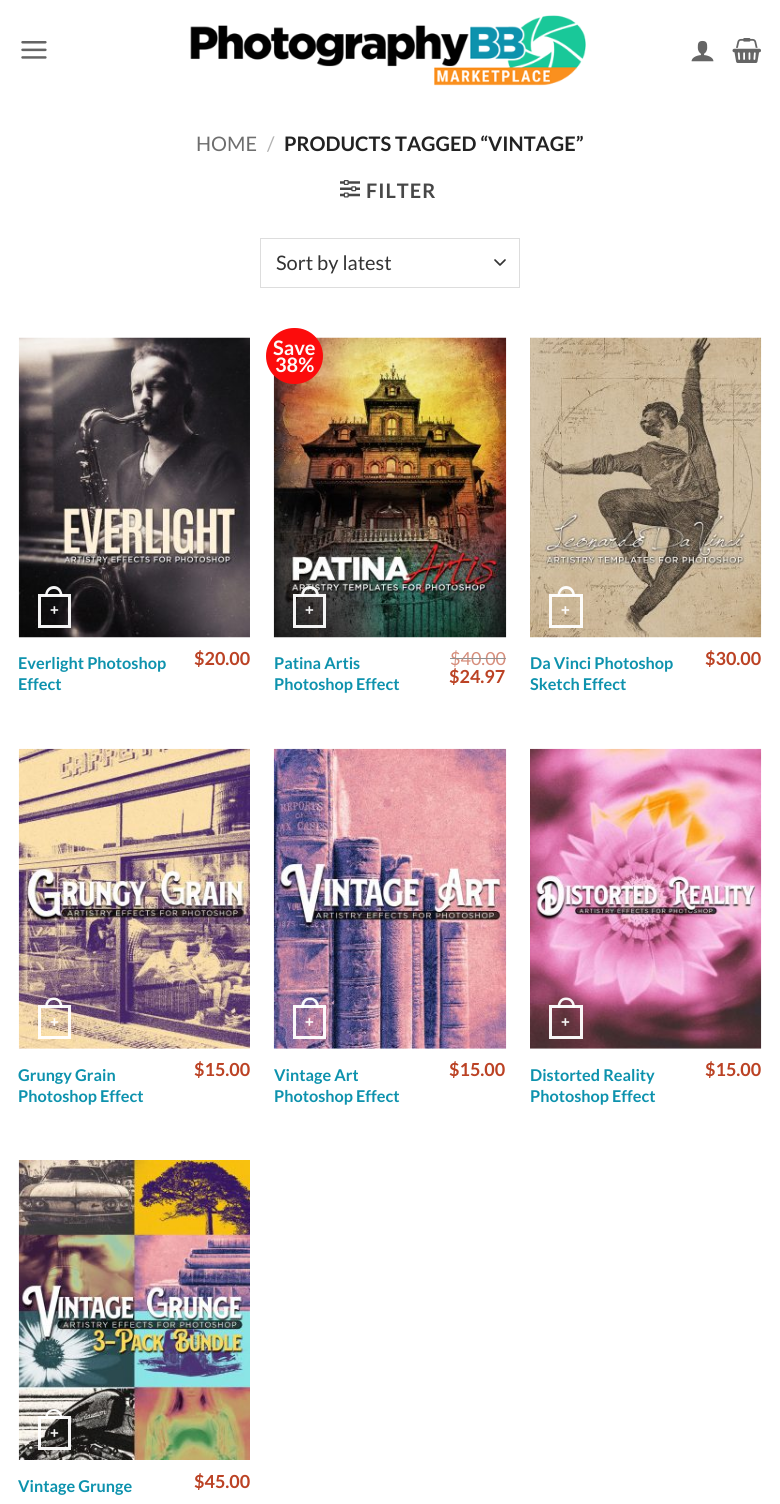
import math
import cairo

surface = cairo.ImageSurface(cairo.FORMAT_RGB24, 780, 1504)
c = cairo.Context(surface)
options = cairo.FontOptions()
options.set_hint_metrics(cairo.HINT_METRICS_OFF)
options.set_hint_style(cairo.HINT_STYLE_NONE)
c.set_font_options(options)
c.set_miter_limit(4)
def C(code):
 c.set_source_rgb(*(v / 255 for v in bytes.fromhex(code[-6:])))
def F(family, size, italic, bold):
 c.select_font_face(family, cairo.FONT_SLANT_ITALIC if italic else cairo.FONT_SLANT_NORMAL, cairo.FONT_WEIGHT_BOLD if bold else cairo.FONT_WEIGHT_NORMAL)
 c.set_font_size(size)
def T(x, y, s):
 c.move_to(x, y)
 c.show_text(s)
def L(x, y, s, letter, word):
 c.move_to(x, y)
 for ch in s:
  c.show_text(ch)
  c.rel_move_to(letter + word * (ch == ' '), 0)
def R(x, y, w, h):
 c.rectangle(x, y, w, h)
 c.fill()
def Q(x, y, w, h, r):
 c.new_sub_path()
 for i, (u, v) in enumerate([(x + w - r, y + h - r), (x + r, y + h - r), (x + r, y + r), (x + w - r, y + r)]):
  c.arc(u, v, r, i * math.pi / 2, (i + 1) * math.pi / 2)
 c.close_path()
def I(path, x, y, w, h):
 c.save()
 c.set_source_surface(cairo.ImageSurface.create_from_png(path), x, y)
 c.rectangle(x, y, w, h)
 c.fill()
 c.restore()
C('ffffff')
c.paint()
I('1.png',21,41,26,18)
I('2.png',190,15,396,71)
I('3.png',691,40,23,22)
I('4.png',732,38,29,25)
F('Lato',20,0,0)
C('6e6e6e')
T(196,151,'HOME')
C('b2b2b2')
T(267,151,'/')
F('Lato',20,0,1)
C('222222')
T(284,151,'PRODUCTS TAGGED “VINTAGE”')
I('5.png',340,180,20,18)
C('474747')
L(366,198,'FILTER',1,0)
c.new_path()
c.move_to(495,260)
c.line_to(500,265)
c.line_to(505,260)
C('333333')
c.set_line_width(1.7)
c.set_line_cap(cairo.LINE_CAP_ROUND)
c.set_line_join(cairo.LINE_JOIN_ROUND)
c.stroke()
c.rectangle(260.5,238.5,259,49)
C('dddddd')
c.set_line_width(1)
c.set_line_cap(cairo.LINE_CAP_BUTT)
c.set_line_join(cairo.LINE_JOIN_MITER)
c.stroke()
F('Lato',20,0,0)
C('333333')
T(276,270,'Sort by latest')
I('6.png',18,337,232,301)
c.rectangle(39.5,595.5,30,31)
c.set_source_rgba(1,1,1,0.95)
c.set_line_width(3)
c.stroke()
c.set_fill_rule(cairo.FILL_RULE_EVEN_ODD)
c.new_path()
c.move_to(54,586)
c.curve_to(59.5,586,62.5,591,62.5,596)
c.line_to(45,596)
c.curve_to(45,591,48,586,54,586)
c.close_path()
c.move_to(54,589)
c.curve_to(58,589,60,592.5,60,596)
c.line_to(47.5,596)
c.curve_to(47.5,592.5,49.5,589,54,589)
c.close_path()
c.fill()
F('Liberation Sans',15,0,1)
C('f3f3f3')
T(50,615,'+')
F('Lato',16.25,0,1)
C('0d92ad')
T(18,669,'Everlight Photoshop')
T(18,690,'Effect')
F('Lato',18,0,1)
C('bb4224')
T(194,665,'$20.00')
I('7.png',273,337,234,301)
C('fc0c0c')
Q(266,328,57,56,28)
c.fill()
F('Lato',20,0,1)
C('fcfbfa')
T(273,355,'Save')
T(275,372,'38%')
c.rectangle(294.5,595.5,30,31)
c.set_source_rgba(1,1,1,0.95)
c.stroke()
c.new_path()
c.move_to(310,586)
c.curve_to(316,586,319,591,319,596)
c.line_to(301,596)
c.curve_to(301,591,304,586,310,586)
c.close_path()
c.move_to(310,589)
c.curve_to(314.5,589,316,592.5,316,596)
c.line_to(304,596)
c.curve_to(304,592.5,305.5,589,310,589)
c.close_path()
c.fill()
F('Liberation Sans',15,0,1)
C('f3f3f3')
T(305,615,'+')
F('Lato',16.25,0,1)
C('0d92ad')
T(274,669,'Patina Artis')
T(274,690,'Photoshop Effect')
F('Lato',18,0,0)
C('d68e7c')
T(450,665,'$40.00')
C('919191')
R(450,658,56,1)
F('Lato',18,0,1)
C('bb4224')
T(449,683,'$24.97')
I('8.png',530,337,232,301)
c.rectangle(550.5,595.5,31,31)
c.set_source_rgba(1,1,1,0.95)
c.stroke()
c.new_path()
c.move_to(566,586)
c.curve_to(572,586,575,591,575,596)
c.line_to(557.5,596)
c.curve_to(557.5,591,560.5,586,566,586)
c.close_path()
c.move_to(566,589)
c.curve_to(570.5,589,572.5,592.5,572.5,596)
c.line_to(560,596)
c.curve_to(560,592.5,562,589,566,589)
c.close_path()
c.fill()
F('Liberation Sans',15,0,1)
C('fcfbfa')
T(561,615,'+')
F('Lato',16.25,0,1)
C('0d92ad')
T(530,669,'Da Vinci Photoshop')
T(530,690,'Sketch Effect')
F('Lato',18,0,1)
C('bb4224')
T(705,665,'$30.00')
I('9.png',18,748,232,301)
c.rectangle(39.5,1006.5,30,31)
c.set_source_rgba(1,1,1,0.95)
c.stroke()
c.new_path()
c.move_to(54,997.5)
c.curve_to(59.5,997.5,62.5,1002,62.5,1007.5)
c.line_to(45,1007.5)
c.curve_to(45,1002,48,997.5,54,997.5)
c.close_path()
c.move_to(54,1000)
c.curve_to(58,1000,60,1003.5,60,1007.5)
c.line_to(47.5,1007.5)
c.curve_to(47.5,1003.5,49.5,1000,54,1000)
c.close_path()
c.fill()
F('Liberation Sans',15,0,1)
C('fcfbfa')
T(50,1027,'+')
F('Lato',16.25,0,1)
C('0d92ad')
T(18,1081,'Grungy Grain')
T(18,1102,'Photoshop Effect')
F('Lato',18,0,1)
C('bb4224')
T(194,1076,'$15.00')
I('10.png',273,748,234,301)
c.rectangle(294.5,1006.5,30,31)
c.set_source_rgba(1,1,1,0.95)
c.stroke()
c.new_path()
c.move_to(310,997.5)
c.curve_to(316,997.5,319,1002,319,1007.5)
c.line_to(301,1007.5)
c.curve_to(301,1002,304,997.5,310,997.5)
c.close_path()
c.move_to(310,1000)
c.curve_to(314.5,1000,316,1003.5,316,1007.5)
c.line_to(304,1007.5)
c.curve_to(304,1003.5,305.5,1000,310,1000)
c.close_path()
c.fill()
F('Liberation Sans',15,0,1)
C('fcfbfa')
T(305,1027,'+')
F('Lato',16.25,0,1)
C('0d92ad')
T(274,1081,'Vintage Art')
T(274,1102,'Photoshop Effect')
F('Lato',18,0,1)
C('bb4224')
T(449,1076,'$15.00')
I('11.png',530,748,232,301)
c.rectangle(550.5,1006.5,31,31)
c.set_source_rgba(1,1,1,0.95)
c.stroke()
c.new_path()
c.move_to(566,997.5)
c.curve_to(572,997.5,575,1002,575,1007.5)
c.line_to(557.5,1007.5)
c.curve_to(557.5,1002,560.5,997.5,566,997.5)
c.close_path()
c.move_to(566,1000)
c.curve_to(570.5,1000,572.5,1003.5,572.5,1007.5)
c.line_to(560,1007.5)
c.curve_to(560,1003.5,562,1000,566,1000)
c.close_path()
c.fill()
F('Liberation Sans',15,0,1)
C('f3f3f3')
T(561,1027,'+')
F('Lato',16.25,0,1)
C('0d92ad')
T(530,1081,'Distorted Reality')
T(530,1102,'Photoshop Effect')
F('Lato',18,0,1)
C('bb4224')
T(705,1076,'$15.00')
I('12.png',18,1160,232,300)
c.rectangle(39.5,1417.5,30,31)
c.set_source_rgba(1,1,1,0.95)
c.stroke()
c.new_path()
c.move_to(54,1409)
c.curve_to(59.5,1409,62.5,1413.5,62.5,1419)
c.line_to(45,1419)
c.curve_to(45,1413.5,48,1409,54,1409)
c.close_path()
c.move_to(54,1411)
c.curve_to(58,1411,60,1415,60,1419)
c.line_to(47.5,1419)
c.curve_to(47.5,1415,49.5,1411,54,1411)
c.close_path()
c.fill()
F('Liberation Sans',15,0,1)
C('f3f3f3')
T(50,1438,'+')
F('Lato',16.25,0,1)
C('0d92ad')
T(18,1492,'Vintage Grunge')
F('Lato',18,0,1)
C('bb4224')
T(194,1488,'$45.00')
surface.write_to_png('o.png')
